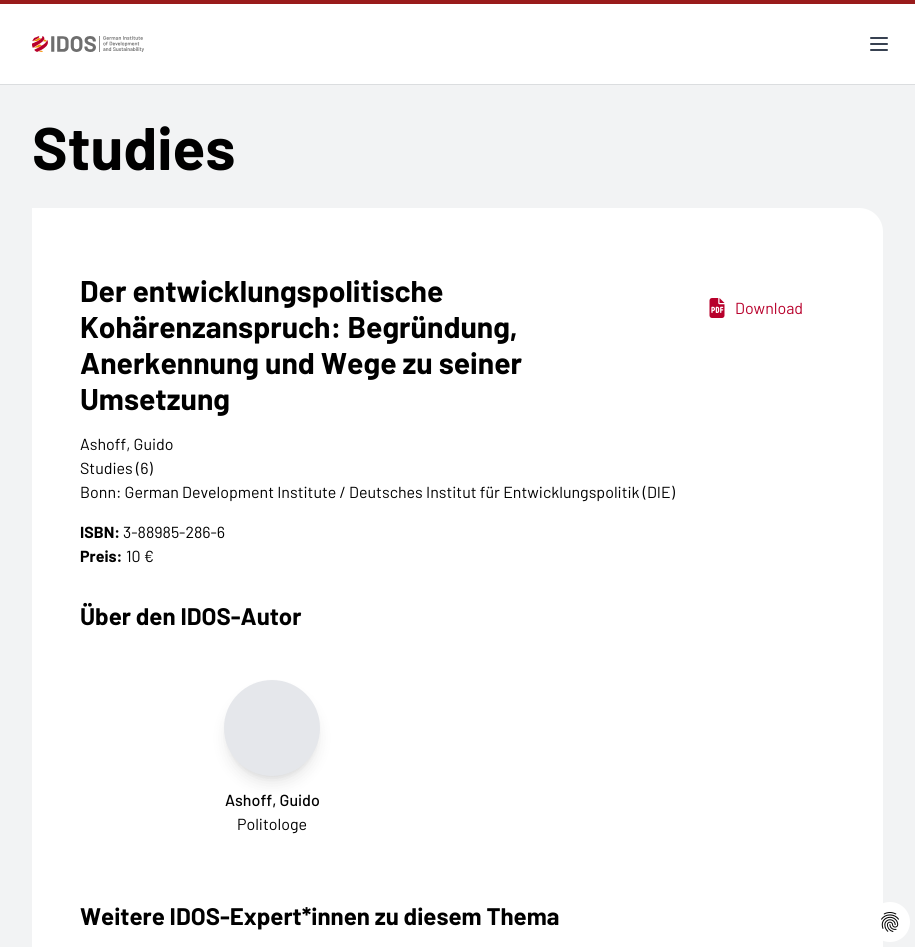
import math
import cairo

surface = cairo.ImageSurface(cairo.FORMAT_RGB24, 915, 947)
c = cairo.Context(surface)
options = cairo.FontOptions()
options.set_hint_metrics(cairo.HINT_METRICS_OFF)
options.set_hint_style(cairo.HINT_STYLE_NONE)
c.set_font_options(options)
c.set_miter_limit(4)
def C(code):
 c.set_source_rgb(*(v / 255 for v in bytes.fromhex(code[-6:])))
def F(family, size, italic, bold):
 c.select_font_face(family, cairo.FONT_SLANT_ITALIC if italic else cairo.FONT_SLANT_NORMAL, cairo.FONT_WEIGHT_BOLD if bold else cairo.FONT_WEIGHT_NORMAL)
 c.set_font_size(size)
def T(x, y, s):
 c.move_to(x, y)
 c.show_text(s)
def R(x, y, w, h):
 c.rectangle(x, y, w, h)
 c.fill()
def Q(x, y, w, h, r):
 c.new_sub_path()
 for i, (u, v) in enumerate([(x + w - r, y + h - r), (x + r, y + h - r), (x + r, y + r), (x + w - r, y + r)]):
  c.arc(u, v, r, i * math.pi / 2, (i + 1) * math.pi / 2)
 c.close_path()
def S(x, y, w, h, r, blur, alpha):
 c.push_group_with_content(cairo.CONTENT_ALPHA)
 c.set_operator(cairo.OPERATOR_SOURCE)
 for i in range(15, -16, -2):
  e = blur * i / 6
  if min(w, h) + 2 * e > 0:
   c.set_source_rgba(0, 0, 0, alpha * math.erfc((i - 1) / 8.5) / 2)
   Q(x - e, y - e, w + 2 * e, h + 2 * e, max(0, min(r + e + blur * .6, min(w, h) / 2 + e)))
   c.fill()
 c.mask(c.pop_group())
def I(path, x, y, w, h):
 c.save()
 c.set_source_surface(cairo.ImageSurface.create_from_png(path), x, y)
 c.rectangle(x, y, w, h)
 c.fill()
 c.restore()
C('ffffff')
c.paint()
C('991b1b')
R(0,0,915,4)
c.rectangle(-.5,-.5,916,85)
C('dbdddf')
c.set_line_width(1)
c.stroke()
I('1.png',32,36,112,16)
c.new_path()
c.move_to(871,38)
c.line_to(887,38)
c.move_to(871,44)
c.line_to(887,44)
c.move_to(871,50)
c.line_to(887,50)
C('374151')
c.set_line_width(2)
c.set_line_cap(cairo.LINE_CAP_ROUND)
c.set_line_join(cairo.LINE_JOIN_ROUND)
c.stroke()
C('f2f3f4')
R(0,85,915,862)
F('Barlow',60,0,1)
C('000000')
T(32,170,'Studies')
C('ffffff')
c.new_path()
c.move_to(32,208)
c.line_to(859,208)
c.curve_to(872.5,208,883,218.5,883,232)
c.line_to(883,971)
c.line_to(56,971)
c.curve_to(42.5,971,32,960.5,32,947)
c.close_path()
c.fill()
F('Barlow',30,0,1)
C('000000')
T(80,302,'Der entwicklungspolitische')
T(80,338,'Kohärenzanspruch: Begründung,')
T(80,374,'Anerkennung und Wege zu seiner')
T(80,410,'Umsetzung')
I('2.png',709,298,16,20)
F('Barlow',16,0,0)
C('b8002b')
T(735,314,'Download')
C('000000')
T(80,450,'Ashoff, Guido')
T(80,474,'Studies (6)')
T(80,498,'Bonn: German Development Institute / Deutsches Institut für Entwicklungspolitik (DIE)')
F('Barlow',16,0,1)
T(80,538,'ISBN:')
F('Barlow',16,0,0)
T(123,538,'3-88985-286-6')
F('Barlow',16,0,1)
T(80,562,'Preis:')
F('Barlow',16,0,0)
T(126,562,'10 €')
F('Barlow',24,0,1)
T(80,625,'Über den IDOS-Autor')
C('000000')
S(228,688,88,88,44,3,.1)
S(227,693,90,90,45,7.5,.1)
C('e5e7eb')
c.arc(272,728,48,0,2 * math.pi)
c.fill()
F('Barlow Medium',16,0,0)
C('000000')
T(225,806,'Ashoff, Guido')
F('Barlow',16,0,0)
T(237,830,'Politologe')
F('Barlow',24,0,1)
T(80,925,'Weitere IDOS-Expert*innen zu diesem Thema')
C('ffffff')
c.new_path()
c.arc(890,922,20,0,2 * math.pi)
c.fill()
I('3.png',881,912,18,20)
surface.write_to_png('o.png')
